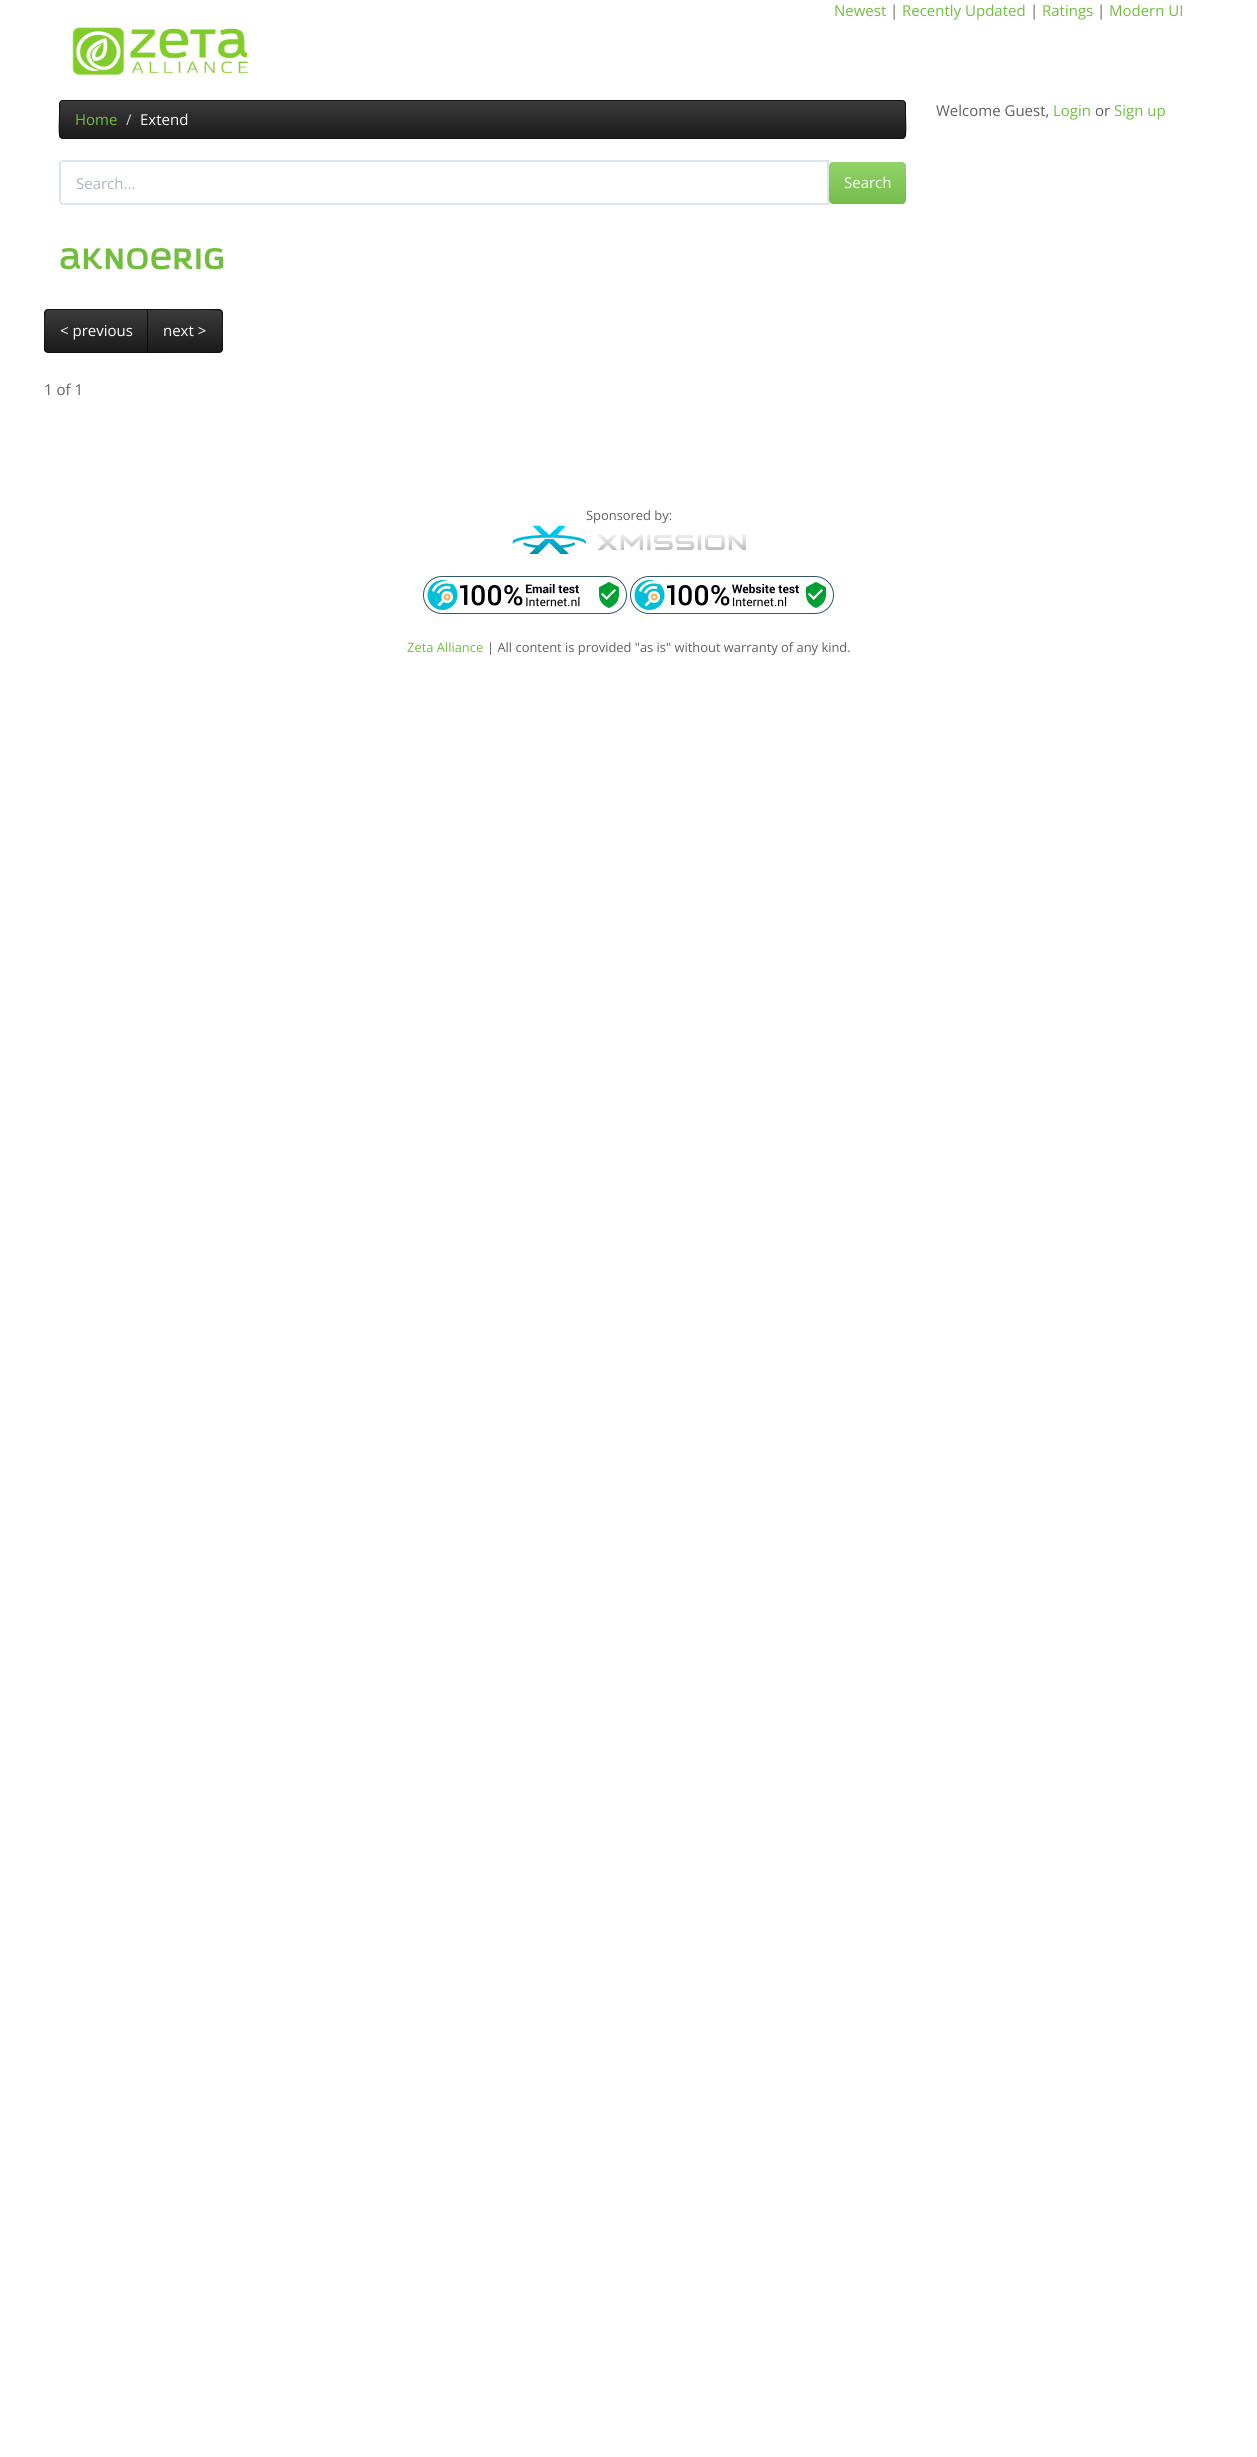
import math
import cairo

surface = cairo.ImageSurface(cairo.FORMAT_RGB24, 1257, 2457)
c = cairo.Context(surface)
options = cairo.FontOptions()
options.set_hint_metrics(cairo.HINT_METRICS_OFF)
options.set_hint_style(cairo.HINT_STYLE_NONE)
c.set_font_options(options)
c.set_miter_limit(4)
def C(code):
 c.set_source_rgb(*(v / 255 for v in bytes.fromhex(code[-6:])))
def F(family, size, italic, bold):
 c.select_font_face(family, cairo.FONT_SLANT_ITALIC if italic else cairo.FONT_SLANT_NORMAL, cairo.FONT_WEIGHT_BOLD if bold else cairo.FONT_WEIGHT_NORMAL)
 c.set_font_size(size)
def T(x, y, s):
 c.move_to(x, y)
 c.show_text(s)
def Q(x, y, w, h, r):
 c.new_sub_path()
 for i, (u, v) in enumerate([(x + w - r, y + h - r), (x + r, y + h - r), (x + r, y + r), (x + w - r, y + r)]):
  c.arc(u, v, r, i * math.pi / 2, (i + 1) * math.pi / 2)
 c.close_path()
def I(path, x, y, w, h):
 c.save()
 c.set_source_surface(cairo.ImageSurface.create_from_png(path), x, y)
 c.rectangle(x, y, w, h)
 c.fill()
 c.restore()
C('ffffff')
c.paint()
F('Open Sans',15,0,0)
C('71be3f')
T(834,16,'Newest')
C('5f6062')
T(890,16,'|')
C('71be3f')
T(902,16,'Recently Updated')
C('5f6062')
T(1030,16,'|')
C('71be3f')
T(1042,16,'Ratings')
C('5f6062')
T(1097,16,'|')
C('71be3f')
T(1109,16,'Modern UI')
I('1.png',72,27,176,48)
gradient = cairo.LinearGradient(483,100,483,139)
gradient.add_color_stop_rgba(0,0.231,0.231,0.231,1)
gradient.add_color_stop_rgba(1,0.102,0.102,0.102,1)
c.set_source(gradient)
Q(59,100,847,39,4)
c.fill()
c.new_path()
c.move_to(904.5,137.5)
c.line_to(902,138.5)
c.line_to(63,138.5)
c.line_to(60.5,137.5)
C('121212')
c.set_line_width(1)
c.stroke()
c.new_path()
c.move_to(60.5,137.5)
c.curve_to(58,135,59.5,118,59.5,114.5)
c.line_to(59.5,109)
c.curve_to(59.5,106.5,58.5,101.5,62.5,100.5)
c.line_to(902.5,100.5)
c.curve_to(906.5,101.5,905.5,106.5,905.5,109)
c.line_to(905.5,114.5)
c.curve_to(905.5,118,907,135,904.5,137.5)
c.set_source_rgba(0,0,0,0.7)
c.stroke()
C('71be3f')
T(75,125,'Home')
C('cccccc')
T(126,125,'/')
C('ffffff')
T(140,125,'Extend')
C('5f6062')
T(936,116,'Welcome Guest,')
C('71be3f')
T(1053,116,'Login')
C('5f6062')
T(1095,116,'or')
C('71be3f')
T(1114,116,'Sign up')
c.new_path()
c.move_to(63,161)
c.line_to(828,161)
c.line_to(828,204)
c.line_to(63,204)
c.curve_to(61.5,204,60,202.5,60,201)
c.line_to(60,164)
c.curve_to(60,162.5,61.5,161,63,161)
c.close_path()
C('dce4ec')
c.set_line_width(2)
c.stroke()
C('acb6c0')
T(76,189,'Search...')
gradient = cairo.LinearGradient(868,162,868,204)
gradient.add_color_stop_rgba(0,0.565,0.827,0.416,1)
gradient.add_color_stop_rgba(1,0.459,0.741,0.294,1)
c.set_source(gradient)
Q(829,162,77,42,4)
c.fill()
C('ffffff')
T(844,188,'Search')
F('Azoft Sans',32,0,1)
C('71be3f')
T(59,269,'aknoerig')
gradient = cairo.LinearGradient(96,309,96,353)
gradient.add_color_stop_rgba(0,0.231,0.231,0.231,1)
gradient.add_color_stop_rgba(1,0.102,0.102,0.102,1)
c.set_source(gradient)
c.new_path()
c.move_to(48,309)
c.line_to(148,309)
c.line_to(148,353)
c.line_to(48,353)
c.curve_to(46,353,44,351,44,349)
c.line_to(44,313)
c.curve_to(44,311,46,309,48,309)
c.close_path()
c.fill()
c.set_source_rgba(0,0,0,0.7)
c.new_path()
c.move_to(48,309)
c.line_to(45,310)
c.line_to(46,311)
c.line_to(48,310)
c.line_to(147,310)
c.line_to(148,309)
c.close_path()
c.fill()
c.set_source_rgba(0,0,0,0.3)
c.new_path()
c.move_to(148,353)
c.line_to(147,352)
c.line_to(48,352)
c.line_to(46,351)
c.line_to(45,352)
c.line_to(48,353)
c.close_path()
c.fill()
c.set_source_rgba(0,0,0,0.7)
c.new_path()
c.move_to(44,313)
c.line_to(44,349)
c.curve_to(44,350,44,351,45,352)
c.line_to(46,351)
c.curve_to(44,350,44,312,46,311)
c.line_to(45,310)
c.close_path()
c.fill()
F('Open Sans',15,0,0)
C('ffffff')
T(60,336,'< previous')
gradient = cairo.LinearGradient(185,309,185,353)
gradient.add_color_stop_rgba(0,0.231,0.231,0.231,1)
gradient.add_color_stop_rgba(1,0.102,0.102,0.102,1)
c.set_source(gradient)
c.new_path()
c.move_to(147,309)
c.line_to(219,309)
c.curve_to(221,309,223,311,223,313)
c.line_to(223,349)
c.curve_to(223,351,221,353,219,353)
c.line_to(147,353)
c.close_path()
c.fill()
c.set_source_rgba(0,0,0,0.7)
c.new_path()
c.move_to(147,309)
c.line_to(148,310)
c.curve_to(156,310,220,309,221,311)
c.line_to(222,310)
c.line_to(219,309)
c.close_path()
c.fill()
c.new_path()
c.move_to(223,349)
c.line_to(223,313)
c.curve_to(223,312,222,311,222,310)
c.line_to(221,311)
c.curve_to(223,312,223,350,221,351)
c.line_to(222,352)
c.close_path()
c.fill()
c.set_source_rgba(0,0,0,0.3)
c.new_path()
c.move_to(219,353)
c.line_to(222,352)
c.line_to(221,351)
c.curve_to(220,353,156,352,148,352)
c.line_to(147,353)
c.close_path()
c.fill()
c.set_source_rgba(0,0,0,0.7)
c.new_path()
c.move_to(147,309)
c.line_to(147,353)
c.line_to(148,352)
c.line_to(148,310)
c.close_path()
c.fill()
C('ffffff')
T(163,336,'next >')
C('5f6062')
T(44,395,'1 of 1')
F('Open Sans',12.9,0,0)
T(586,520,'Sponsored by:')
I('2.png',512,525,234,29)
I('3.png',423,576,204,38)
I('4.png',630,576,204,38)
C('71be3f')
T(407,652,'Zeta Alliance')
C('5f6062')
T(487,652,'| All content is provided "as is" without warranty of any kind.')
surface.write_to_png('o.png')
